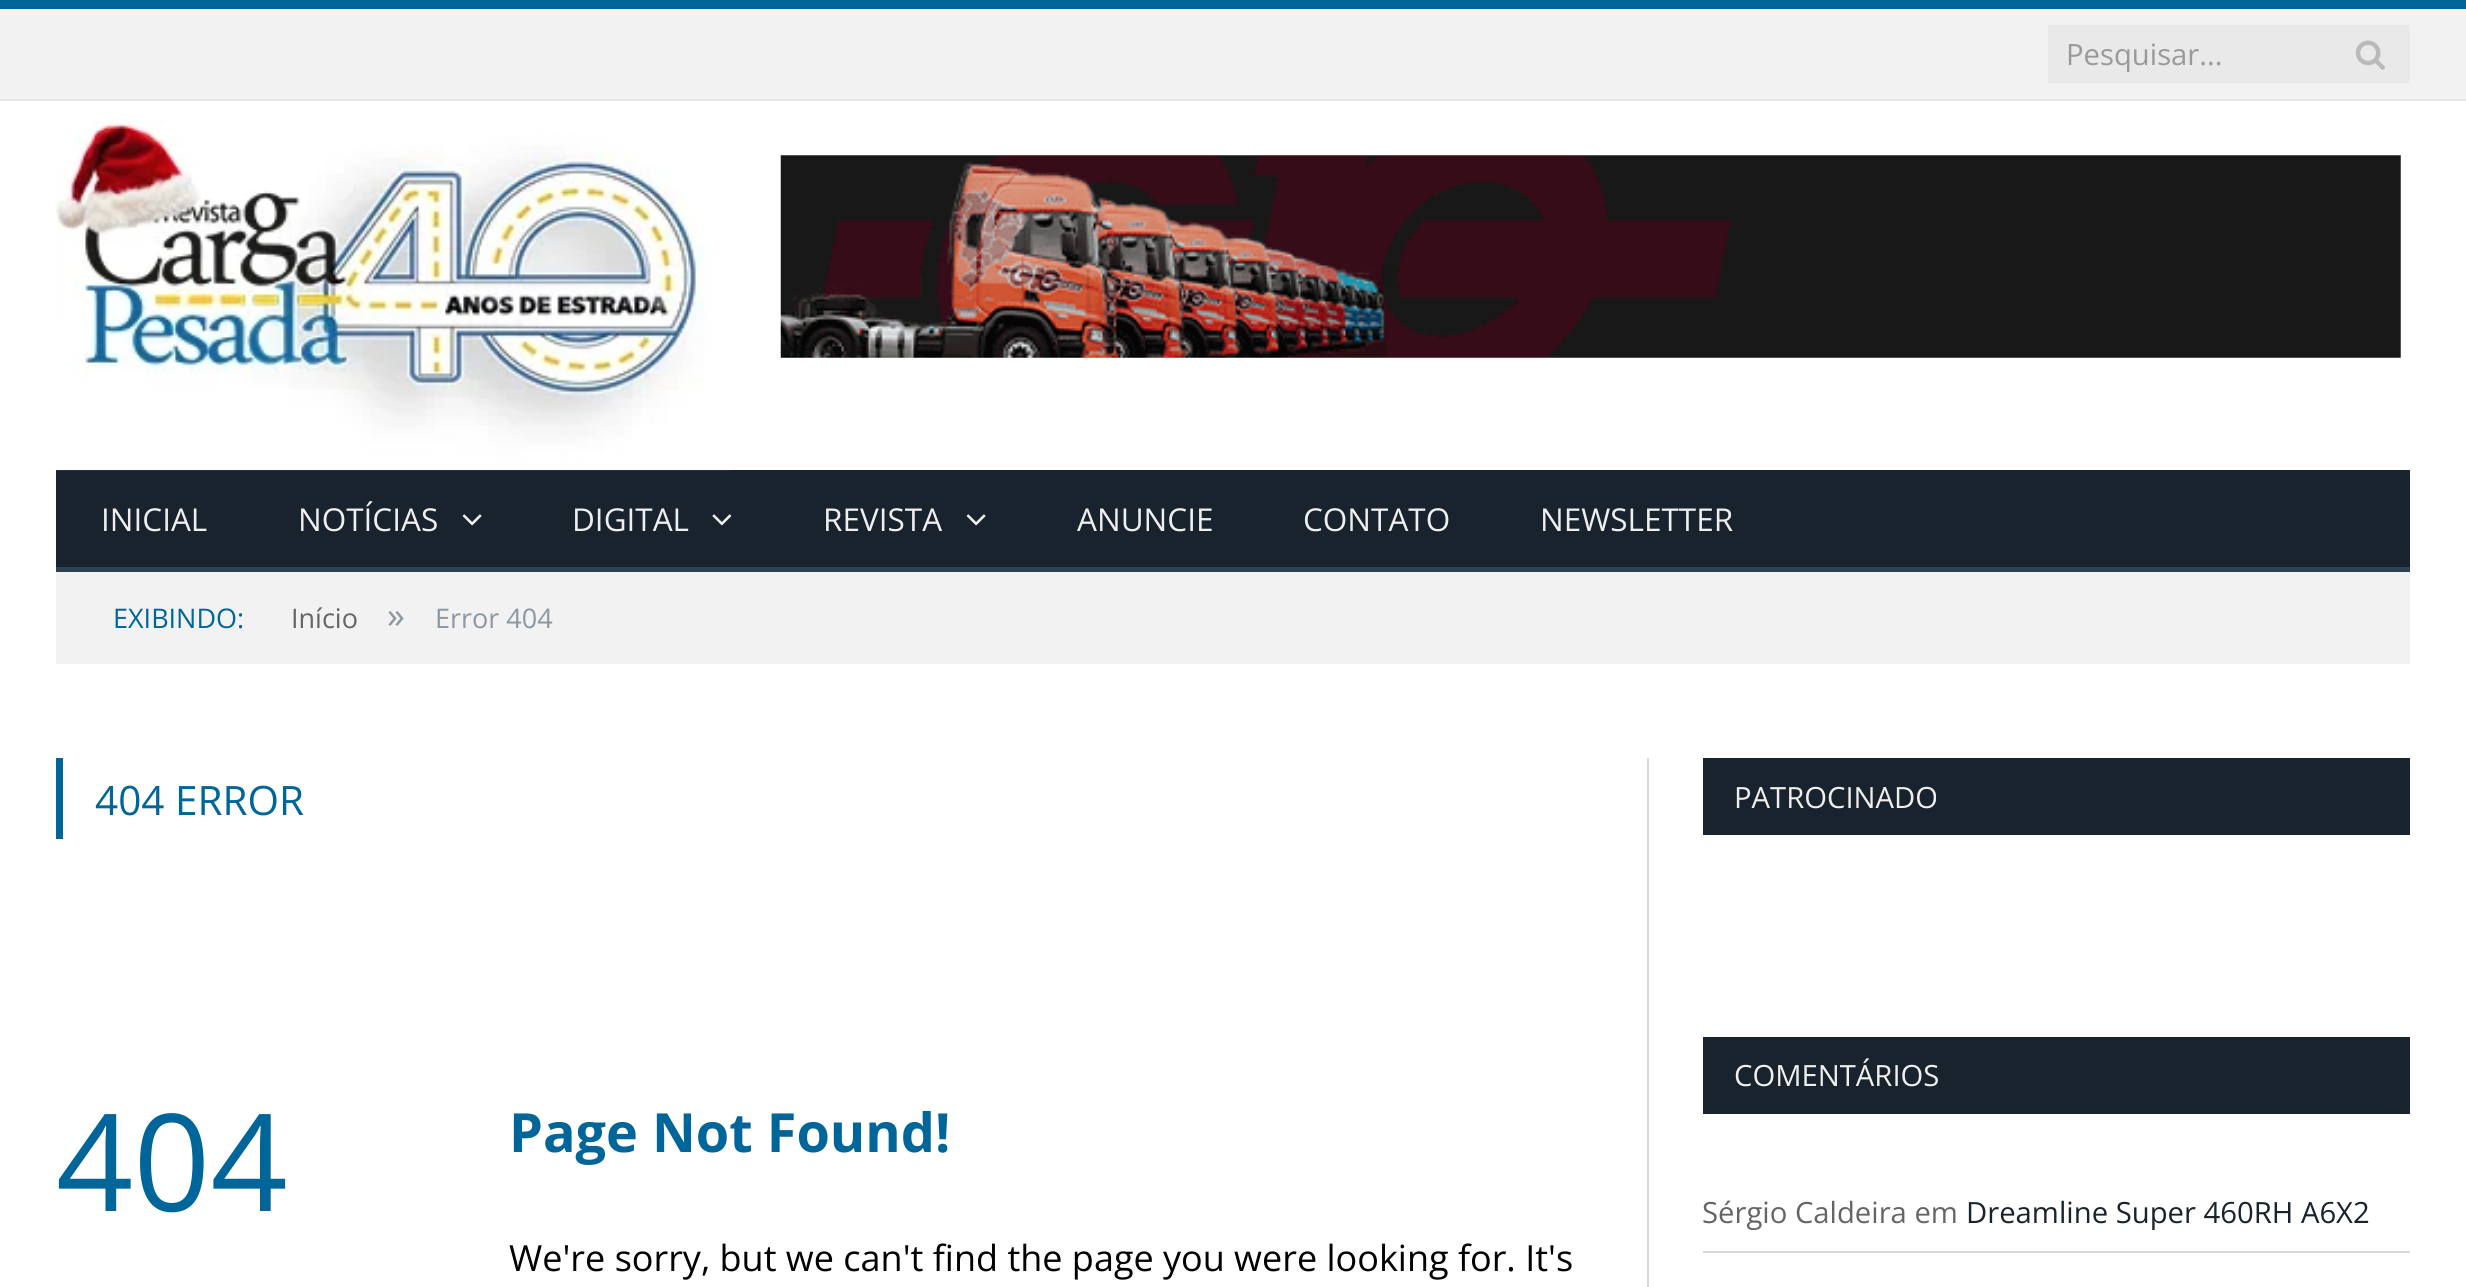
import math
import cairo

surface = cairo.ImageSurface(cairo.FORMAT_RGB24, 2466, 1287)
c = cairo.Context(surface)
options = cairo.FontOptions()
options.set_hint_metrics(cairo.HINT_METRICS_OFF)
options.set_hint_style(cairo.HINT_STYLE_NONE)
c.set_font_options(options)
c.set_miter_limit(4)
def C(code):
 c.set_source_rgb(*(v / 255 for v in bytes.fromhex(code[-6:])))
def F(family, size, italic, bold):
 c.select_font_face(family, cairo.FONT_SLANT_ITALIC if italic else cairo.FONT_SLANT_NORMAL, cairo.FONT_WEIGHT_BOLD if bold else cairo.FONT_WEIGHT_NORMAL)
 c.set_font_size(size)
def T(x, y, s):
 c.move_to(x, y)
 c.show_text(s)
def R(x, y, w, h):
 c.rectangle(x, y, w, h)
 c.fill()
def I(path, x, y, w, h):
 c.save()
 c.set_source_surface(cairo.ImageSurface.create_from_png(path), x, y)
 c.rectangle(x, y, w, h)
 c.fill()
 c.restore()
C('ffffff')
c.paint()
C('f2f2f2')
R(0,9,2466,90)
C('006699')
R(0,0,2466,9)
C('e7e7e7')
R(0,99,2466,2)
C('e9e9e9')
R(2048,25,362,58)
F('Open Sans',29.25,0,0)
C('999999')
T(2066,65,'Pesquisar...')
I('1.png',2355,40,30,30)
C('19232d')
R(56,470,2354,97)
I('2.png',56,119,675,352)
I('3.png',780,155,1621,203)
C('2f4154')
R(56,567,2354,5)
F('Open Sans',31.5,0,0)
C('efefef')
T(101,531,'INICIAL')
T(298,531,'NOTÍCIAS')
I('4.png',462,514,20,12)
T(572,531,'DIGITAL')
I('5.png',712,514,20,12)
T(823,531,'REVISTA')
I('4.png',966,514,20,12)
T(1077,531,'ANUNCIE')
T(1303,531,'CONTATO')
T(1540,531,'NEWSLETTER')
C('f2f2f2')
R(56,572,2354,92)
F('Open Sans',27,0,0)
C('006699')
T(113,628,'EXIBINDO:')
C('656565')
T(291,628,'Início')
F('Open Sans',36,0,0)
C('8d97a1')
T(387,628,'»')
F('Open Sans',27,0,0)
T(435,628,'Error 404')
C('006699')
R(56,758,7,81)
F('Open Sans',40.5,0,0)
T(95,815,'404 ERROR')
F('Open Sans',135,0,0)
T(56,1211,'404')
F('Open Sans',54,0,1)
T(509,1152,'Page Not Found!')
F('Open Sans',36,0,0)
C('000000')
T(509,1271,'We\'re sorry, but we can\'t find the page you were looking for. It\'s')
C('d9d9d9')
R(1647,758,2,529)
C('19232d')
R(1703,758,707,77)
F('Open Sans',29.25,0,0)
C('efefef')
T(1734,808,'PATROCINADO')
C('19232d')
R(1703,1037,707,77)
C('efefef')
T(1734,1086,'COMENTÁRIOS')
C('d9d9d9')
R(1703,1251,707,2)
C('656565')
T(1702,1223,'Sérgio Caldeira em')
C('19232d')
T(1966,1223,'Dreamline Super 460RH A6X2')
surface.write_to_png('o.png')
